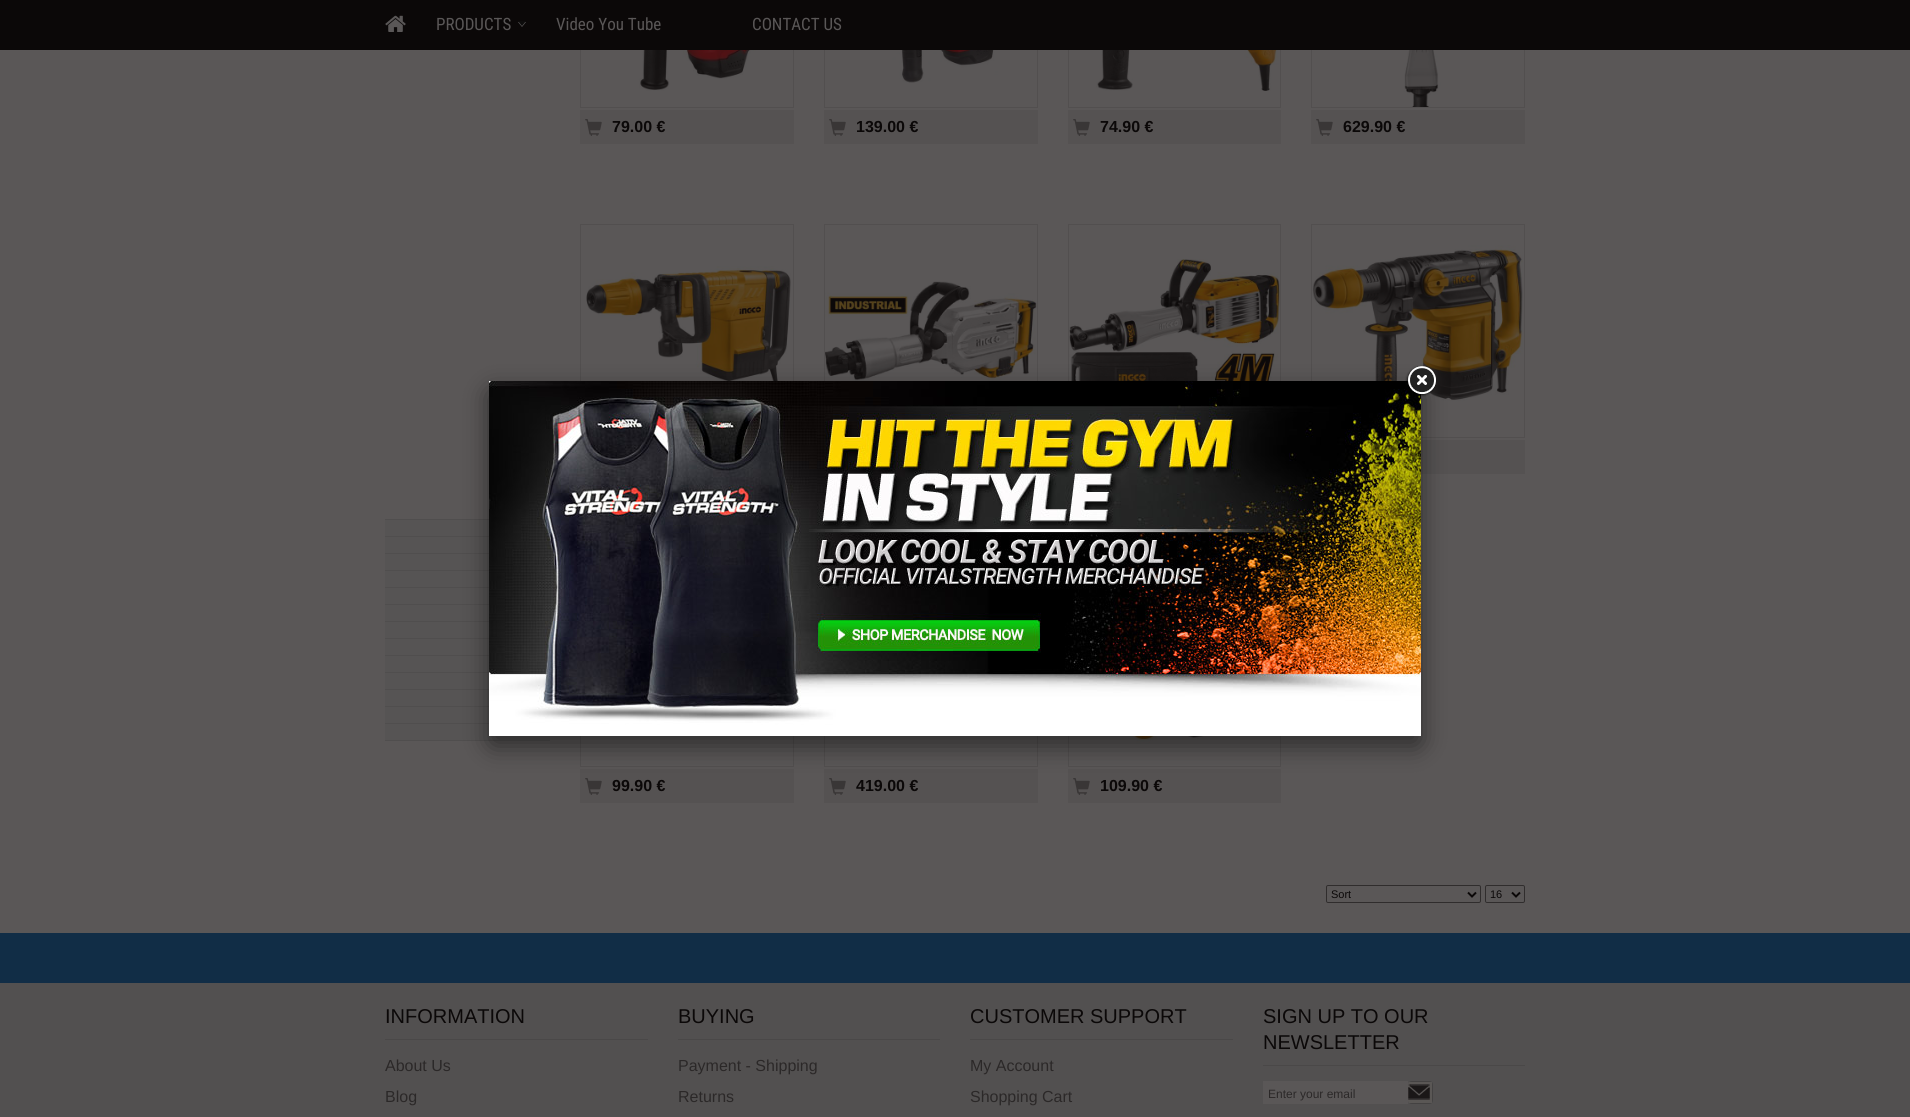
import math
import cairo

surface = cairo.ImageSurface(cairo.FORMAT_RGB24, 1910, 1117)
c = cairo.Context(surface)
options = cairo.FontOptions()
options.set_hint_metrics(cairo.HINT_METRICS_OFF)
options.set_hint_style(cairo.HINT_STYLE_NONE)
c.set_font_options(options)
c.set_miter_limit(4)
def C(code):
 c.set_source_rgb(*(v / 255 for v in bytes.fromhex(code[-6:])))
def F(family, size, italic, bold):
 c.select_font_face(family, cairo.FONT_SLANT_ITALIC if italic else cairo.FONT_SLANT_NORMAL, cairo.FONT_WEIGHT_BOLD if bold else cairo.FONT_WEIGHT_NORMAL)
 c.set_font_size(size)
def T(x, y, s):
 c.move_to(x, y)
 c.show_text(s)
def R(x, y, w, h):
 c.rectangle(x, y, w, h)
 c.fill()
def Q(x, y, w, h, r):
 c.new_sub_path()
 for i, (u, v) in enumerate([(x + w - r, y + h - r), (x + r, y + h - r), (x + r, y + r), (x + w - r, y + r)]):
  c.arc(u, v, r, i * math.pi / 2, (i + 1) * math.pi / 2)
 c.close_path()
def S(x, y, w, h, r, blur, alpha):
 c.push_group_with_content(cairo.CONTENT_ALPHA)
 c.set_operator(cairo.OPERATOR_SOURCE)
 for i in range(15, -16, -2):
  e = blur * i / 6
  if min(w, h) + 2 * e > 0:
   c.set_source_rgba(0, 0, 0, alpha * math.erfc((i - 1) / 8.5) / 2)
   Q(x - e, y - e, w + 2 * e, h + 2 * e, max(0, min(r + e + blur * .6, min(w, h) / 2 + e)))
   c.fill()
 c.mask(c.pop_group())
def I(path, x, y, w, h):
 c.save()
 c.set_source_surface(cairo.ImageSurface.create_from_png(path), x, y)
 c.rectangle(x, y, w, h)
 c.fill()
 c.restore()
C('5a5757')
c.paint()
c.rectangle(580.5,-.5,213,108)
C('524f4f')
c.set_line_width(1)
c.stroke()
c.rectangle(824.5,-.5,213,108)
c.stroke()
c.rectangle(1068.5,-.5,212,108)
c.stroke()
c.rectangle(1311.5,-.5,213,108)
c.stroke()
C('0b0808')
R(0,0,1910,50)
I('1.png',385,15,21,17)
I('2.png',518,21,8,6)
F('Roboto Condensed',17,0,0)
C('5a5757')
T(436,30,'PRODUCTS')
T(556,30,'Video You Τube')
T(752,30,'CONTACT US')
C('504e4e')
R(385,519,104,1)
R(385,536,104,1)
C('565454')
R(385,520,104,16)
C('504e4e')
R(385,553,104,1)
C('565454')
R(385,537,104,16)
C('504e4e')
R(385,570,104,1)
C('565454')
R(385,554,104,16)
C('504e4e')
R(385,587,104,1)
C('565454')
R(385,571,104,16)
C('504e4e')
R(385,604,104,1)
C('565454')
R(385,588,104,16)
C('504e4e')
R(385,621,104,1)
C('565454')
R(385,605,104,16)
C('504e4e')
R(385,638,104,1)
C('565454')
R(385,622,104,16)
C('504e4e')
R(385,655,104,1)
C('565454')
R(385,639,104,16)
C('504e4e')
R(385,672,104,1)
C('565454')
R(385,656,104,16)
C('504e4e')
R(385,689,104,1)
C('565454')
R(385,673,104,16)
C('504e4e')
R(385,706,104,1)
C('565454')
R(385,690,104,16)
C('504e4e')
R(385,723,104,1)
C('565454')
R(385,707,104,16)
C('504e4e')
R(385,740,165,1)
C('565454')
R(385,724,165,16)
I('3.png',625,50,167,41)
C('555252')
R(580,110,214,34)
I('4.png',585,119,17,17)
F('Liberation Sans',16,0,1)
C('0b0808')
T(612,132,'79.00 €')
I('5.png',892,50,145,33)
C('555252')
R(824,110,214,34)
I('4.png',829,119,17,17)
C('0b0808')
T(856,132,'139.00 €')
I('6.png',1096,50,183,41)
C('555252')
R(1068,110,213,34)
I('4.png',1073,119,17,17)
C('0b0808')
T(1100,132,'74.90 €')
I('7.png',1332,50,191,57)
C('555252')
R(1311,110,214,34)
I('4.png',1316,119,17,17)
C('0b0808')
T(1343,132,'629.90 €')
c.rectangle(580.5,224.5,213,213)
C('524f4f')
c.stroke()
I('8.png',586,266,205,115)
c.rectangle(824.5,224.5,213,213)
c.stroke()
I('9.png',825,281,212,100)
c.rectangle(1068.5,224.5,212,213)
c.stroke()
I('10.png',1069,259,211,122)
c.rectangle(1311.5,224.5,213,213)
c.stroke()
I('11.png',1312,245,211,170)
C('555252')
R(1421,440,104,34)
c.rectangle(580.5,554.5,213,212)
C('524f4f')
c.stroke()
C('555252')
R(580,769,214,34)
I('4.png',585,778,17,17)
C('0b0808')
T(612,791,'99.90 €')
c.rectangle(824.5,554.5,213,212)
C('524f4f')
c.stroke()
C('555252')
R(824,769,214,34)
I('4.png',829,778,17,17)
C('0b0808')
T(856,791,'419.00 €')
c.rectangle(1068.5,554.5,212,212)
C('524f4f')
c.stroke()
I('12.png',1069,736,211,8)
C('555252')
R(1068,769,213,34)
I('4.png',1073,778,17,17)
C('0b0808')
T(1100,791,'109.90 €')
Q(1326.5,885.5,154,17,1.5)
C('302d2d')
c.stroke()
c.new_path()
c.move_to(1468,892.5)
c.line_to(1472,896.5)
c.line_to(1476,892.5)
C('0b0808')
c.set_line_width(2)
c.stroke()
F('Liberation Sans',11,0,0)
T(1331,898,'Sort')
Q(1485.5,885.5,39,17,1.5)
C('302d2d')
c.set_line_width(1)
c.stroke()
c.new_path()
c.move_to(1512,892.5)
c.line_to(1516,896.5)
c.line_to(1520,892.5)
C('0b0808')
c.set_line_width(2)
c.stroke()
T(1490,898,'16')
C('112d46')
R(0,933,1910,50)
C('525050')
R(0,983,1910,134)
C('4a4848')
R(385,1039,263,1)
F('Liberation Sans',20,0,0)
C('0b0808')
T(385,1023,'INFORMATION')
F('Liberation Sans',16,0,0)
C('2b2828')
T(385,1071,'About Us')
T(385,1102,'Blog')
C('4a4848')
R(678,1039,262,1)
F('Liberation Sans',20,0,0)
C('0b0808')
T(678,1023,'BUYING')
F('Liberation Sans',16,0,0)
C('2b2828')
T(678,1071,'Payment - Shipping')
T(678,1102,'Returns')
C('4a4848')
R(970,1039,263,1)
F('Liberation Sans',20,0,0)
C('0b0808')
T(970,1023,'CUSTOMER SUPPORT')
F('Liberation Sans',16,0,0)
C('2b2828')
T(970,1071,'My Account')
T(970,1102,'Shopping Cart')
C('4a4848')
R(1263,1065,262,1)
F('Liberation Sans',20,0,0)
C('0b0808')
T(1263,1023,'SIGN UP TO OUR')
T(1263,1049,'NEWSLETTER')
C('5a5757')
R(1263,1081,145,23)
F('Liberation Sans',12,0,0)
C('2b2828')
T(1268,1098,'Enter your email')
I('13.png',1408,1081,25,23)
C('000000')
S(489,391,932,355,4,12.5,.5)
I('15.png',489,381,932,355)
I('14.png',1405,365,31,32)
surface.write_to_png('o.png')
